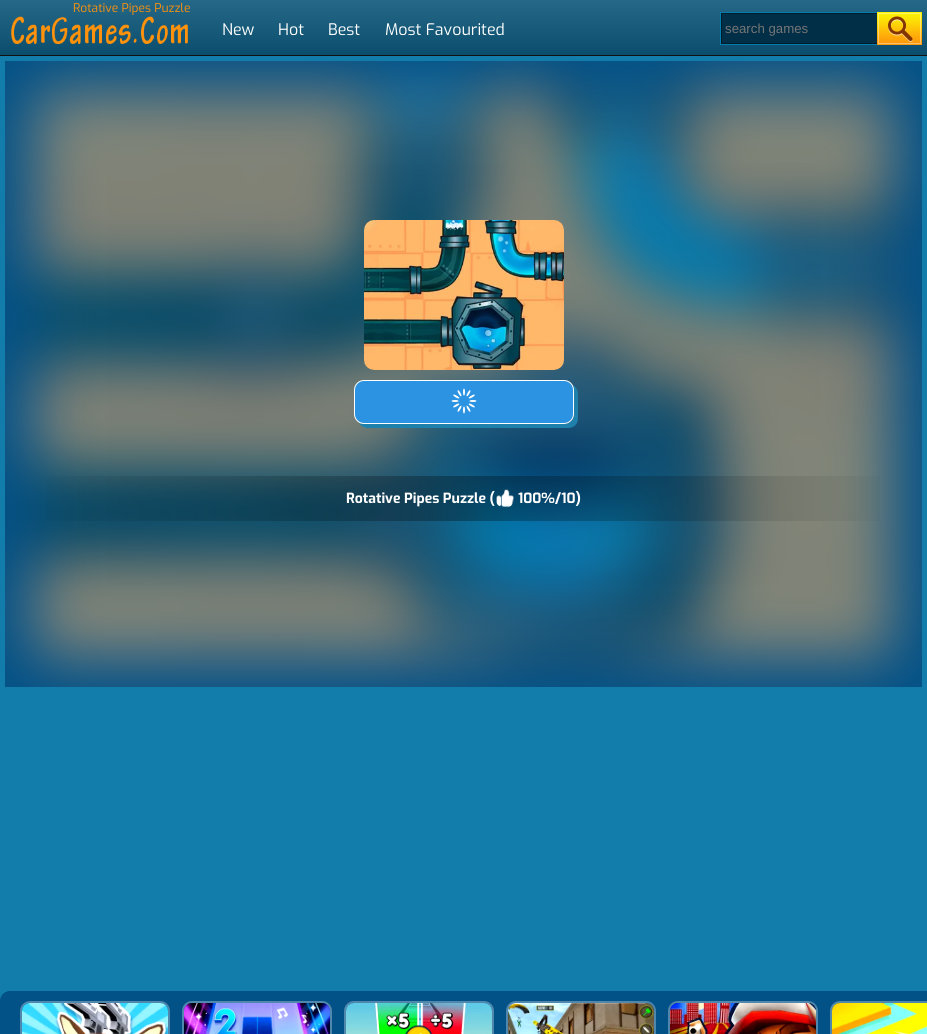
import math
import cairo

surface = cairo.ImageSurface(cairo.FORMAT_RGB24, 927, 1034)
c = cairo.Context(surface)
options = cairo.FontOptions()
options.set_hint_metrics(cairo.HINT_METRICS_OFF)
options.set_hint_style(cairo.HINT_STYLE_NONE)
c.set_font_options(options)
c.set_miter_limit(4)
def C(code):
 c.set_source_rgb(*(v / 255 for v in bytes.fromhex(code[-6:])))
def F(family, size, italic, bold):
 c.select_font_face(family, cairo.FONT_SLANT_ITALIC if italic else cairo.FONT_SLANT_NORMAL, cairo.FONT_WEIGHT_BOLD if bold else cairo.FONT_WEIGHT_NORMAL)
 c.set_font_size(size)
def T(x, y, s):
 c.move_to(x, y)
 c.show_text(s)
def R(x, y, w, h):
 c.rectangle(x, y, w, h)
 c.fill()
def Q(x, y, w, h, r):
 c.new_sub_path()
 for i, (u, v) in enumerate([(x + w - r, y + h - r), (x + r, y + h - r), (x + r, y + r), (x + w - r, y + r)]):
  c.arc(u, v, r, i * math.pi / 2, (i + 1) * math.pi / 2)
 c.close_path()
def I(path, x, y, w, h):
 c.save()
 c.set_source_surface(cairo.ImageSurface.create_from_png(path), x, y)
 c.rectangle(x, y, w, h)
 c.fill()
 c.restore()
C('127dab')
c.paint()
gradient = cairo.LinearGradient(464,0,464,55)
gradient.add_color_stop_rgba(0,0.149,0.408,0.529,1)
gradient.add_color_stop_rgba(1,0.039,0.302,0.424,1)
c.set_source(gradient)
R(0,0,927,55)
C('111111')
R(0,55,927,1)
F('Exo',12,0,0)
C('fe920c')
T(73,12,'Rotative Pipes Puzzle')
I('1.png',11,16,177,28)
F('Exo',16,0,0)
C('ffffff')
T(222,35,'New')
T(278,35,'Hot')
T(328,35,'Best')
T(385,35,'Most Favourited')
I('2.png',720,12,202,33)
F('Liberation Sans',13.25,0,0)
C('757575')
T(725,33,'search games')
C('025187')
R(5,61,917,626)
I('3.png',5,61,917,626)
I('4.png',364,220,200,150)
C('1d81ac')
c.new_path()
c.move_to(359,423)
c.curve_to(361,426,364,428,368,428)
c.line_to(568,428)
c.curve_to(574,428,578,424,578,418)
c.line_to(578,394)
c.curve_to(578,390,576,387,573,385)
c.curve_to(574,387,574,388,574,390)
c.line_to(574,414)
c.curve_to(574,420,570,424,564,424)
c.line_to(364,424)
c.curve_to(362,424,361,424,359,423)
c.close_path()
c.fill()
C('2b93e2')
Q(354.5,380.5,219,43,9.5)
c.fill_preserve()
C('ffffff')
c.set_line_width(1)
c.stroke()
I('5.png',451,388,26,26)
gradient = cairo.LinearGradient(15,499,912,499)
gradient.add_color_stop_rgba(0,0,0,0,0)
gradient.add_color_stop_rgba(.5,0,0,0,.3)
gradient.add_color_stop_rgba(1,0,0,0,0)
c.set_source(gradient)
R(47,476,833,45)
F('Exo',14,0,1)
C('ffffff')
T(346,503,'Rotative Pipes Puzzle (')
I('6.png',496,489,18,19)
T(518,503,'100%/10)')
C('025187')
Q(0,991,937,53,10)
c.fill()
Q(21,1002,148,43,9)
C('5087ac')
c.set_line_width(2)
c.stroke()
I('7.png',22,1003,146,31)
Q(183,1002,148,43,9)
c.stroke()
I('8.png',184,1003,146,31)
Q(345,1002,148,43,9)
c.stroke()
I('9.png',346,1003,146,31)
Q(507,1002,148,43,9)
c.stroke()
I('10.png',508,1003,146,31)
Q(669,1002,148,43,9)
c.stroke()
I('11.png',670,1003,146,31)
Q(831,1002,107,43,9)
c.stroke()
I('12.png',832,1003,95,31)
surface.write_to_png('o.png')
